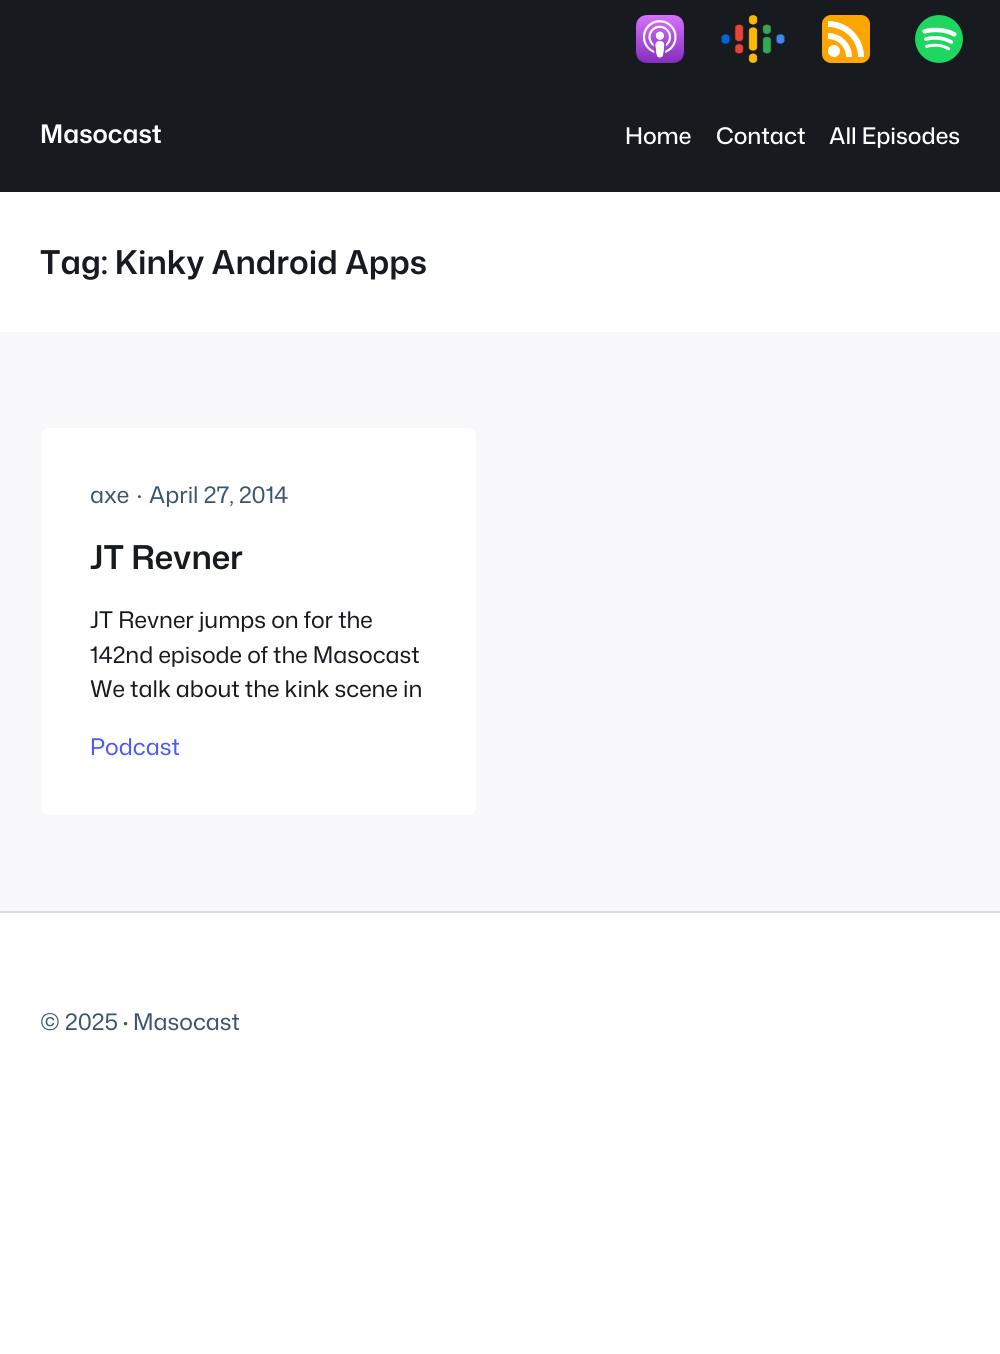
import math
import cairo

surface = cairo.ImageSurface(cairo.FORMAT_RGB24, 1000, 1354)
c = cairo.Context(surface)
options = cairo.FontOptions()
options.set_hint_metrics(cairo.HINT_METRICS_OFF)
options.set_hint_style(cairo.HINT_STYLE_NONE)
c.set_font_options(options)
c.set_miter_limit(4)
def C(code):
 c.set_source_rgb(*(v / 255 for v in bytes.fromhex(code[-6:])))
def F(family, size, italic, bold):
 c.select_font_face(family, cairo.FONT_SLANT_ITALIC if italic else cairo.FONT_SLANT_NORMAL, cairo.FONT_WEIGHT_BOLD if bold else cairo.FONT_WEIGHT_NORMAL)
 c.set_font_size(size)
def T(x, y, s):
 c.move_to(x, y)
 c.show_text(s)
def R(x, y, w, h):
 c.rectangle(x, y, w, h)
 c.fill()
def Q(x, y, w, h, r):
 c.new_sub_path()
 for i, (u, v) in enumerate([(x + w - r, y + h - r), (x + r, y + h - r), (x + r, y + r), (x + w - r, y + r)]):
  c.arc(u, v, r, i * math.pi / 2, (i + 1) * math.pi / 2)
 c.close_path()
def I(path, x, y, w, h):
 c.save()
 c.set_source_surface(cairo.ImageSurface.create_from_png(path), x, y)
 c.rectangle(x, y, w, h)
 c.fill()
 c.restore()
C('ffffff')
c.paint()
C('171a1f')
R(0,0,1000,192)
I('1.png',636,15,48,48)
I('2.png',721,15,64,48)
I('3.png',822,15,48,48)
I('4.png',915,15,48,48)
F('Mona Sans SemiBold',25.5,0,0)
C('ffffff')
T(40,143,'Masocast')
F('Mona Sans Medium',22.9,0,0)
T(625,144,'Home')
T(716,144,'Contact')
T(829,144,'All Episodes')
F('Mona Sans SemiBold',32.75,0,0)
C('171a1f')
T(40,274,'Tag: Kinky Android Apps')
C('f8f7f9')
R(0,332,1000,579)
C('ffffff')
Q(41,428,435,387,8)
c.fill()
F('Mona Sans',22.9,0,0)
C('3b5570')
T(90,503,'axe')
T(137,503,'·')
T(149,503,'April 27, 2014')
F('Mona Sans SemiBold',32.75,0,0)
C('171a1f')
T(90,569,'JT Revner')
F('Mona Sans',22.9,0,0)
T(90,628,'JT Revner jumps on for the')
T(90,663,'142nd episode of the Masocast')
T(90,697,'We talk about the kink scene in')
C('465aff')
T(90,755,'Podcast')
C('dadee3')
R(0,911,1000,2)
C('3b5570')
T(40,1030,'© 2025')
F('Mona Sans SemiBold',22.9,0,0)
T(123,1030,'·')
F('Mona Sans',22.9,0,0)
T(133,1030,'Masocast')
surface.write_to_png('o.png')
